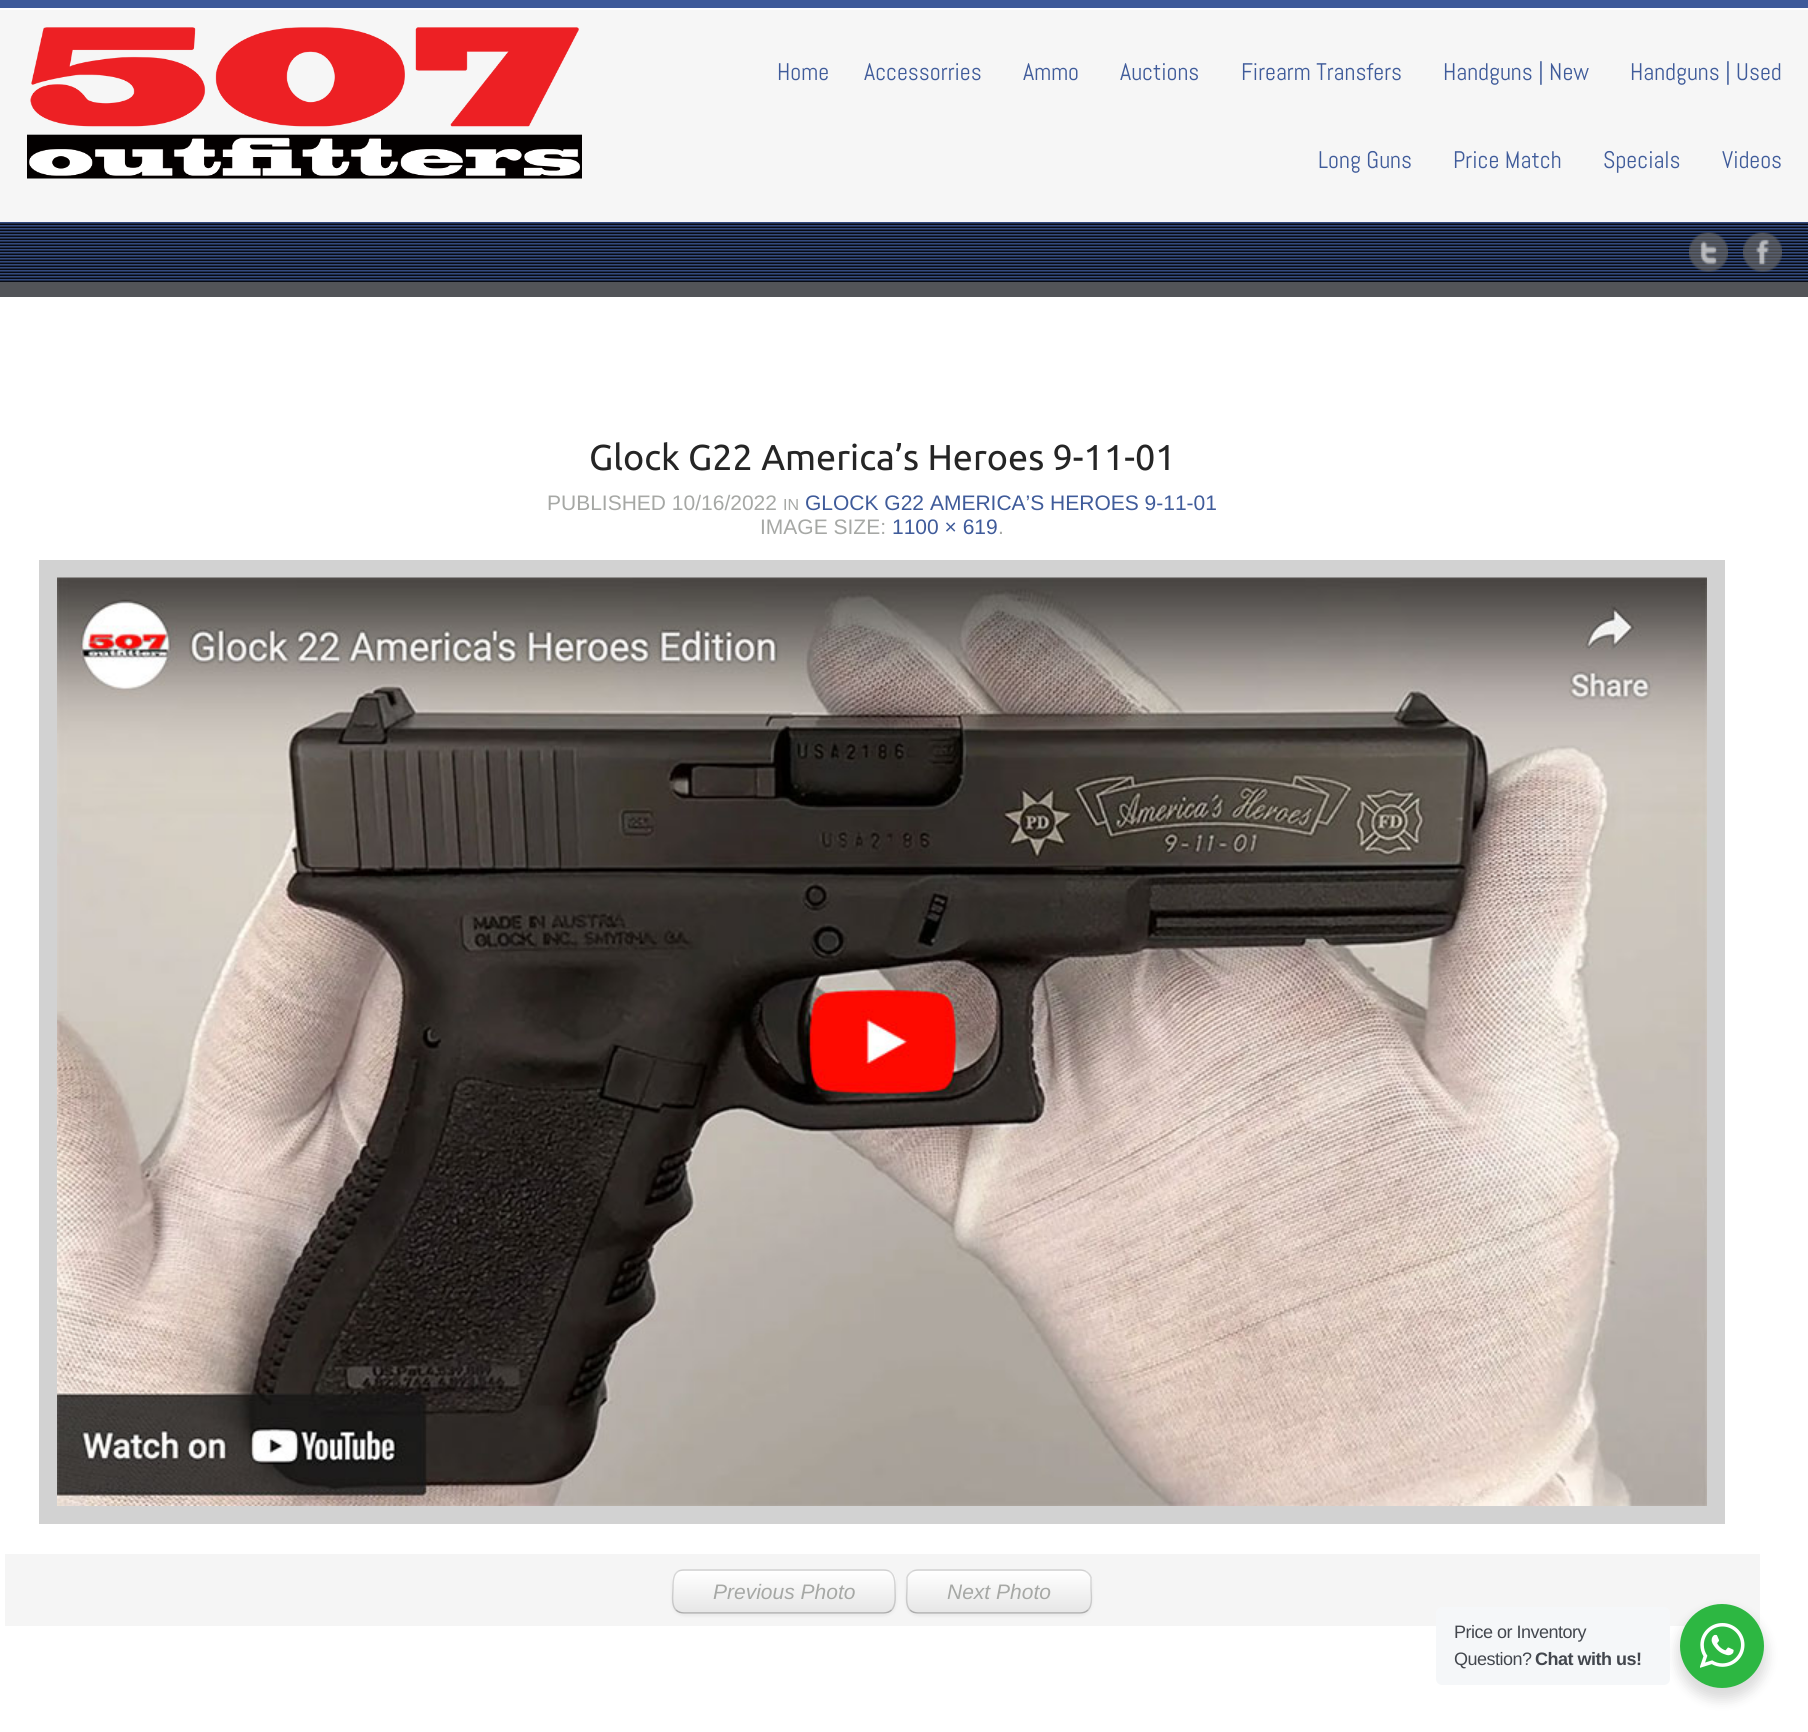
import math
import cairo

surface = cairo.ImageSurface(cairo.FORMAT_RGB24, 1808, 1732)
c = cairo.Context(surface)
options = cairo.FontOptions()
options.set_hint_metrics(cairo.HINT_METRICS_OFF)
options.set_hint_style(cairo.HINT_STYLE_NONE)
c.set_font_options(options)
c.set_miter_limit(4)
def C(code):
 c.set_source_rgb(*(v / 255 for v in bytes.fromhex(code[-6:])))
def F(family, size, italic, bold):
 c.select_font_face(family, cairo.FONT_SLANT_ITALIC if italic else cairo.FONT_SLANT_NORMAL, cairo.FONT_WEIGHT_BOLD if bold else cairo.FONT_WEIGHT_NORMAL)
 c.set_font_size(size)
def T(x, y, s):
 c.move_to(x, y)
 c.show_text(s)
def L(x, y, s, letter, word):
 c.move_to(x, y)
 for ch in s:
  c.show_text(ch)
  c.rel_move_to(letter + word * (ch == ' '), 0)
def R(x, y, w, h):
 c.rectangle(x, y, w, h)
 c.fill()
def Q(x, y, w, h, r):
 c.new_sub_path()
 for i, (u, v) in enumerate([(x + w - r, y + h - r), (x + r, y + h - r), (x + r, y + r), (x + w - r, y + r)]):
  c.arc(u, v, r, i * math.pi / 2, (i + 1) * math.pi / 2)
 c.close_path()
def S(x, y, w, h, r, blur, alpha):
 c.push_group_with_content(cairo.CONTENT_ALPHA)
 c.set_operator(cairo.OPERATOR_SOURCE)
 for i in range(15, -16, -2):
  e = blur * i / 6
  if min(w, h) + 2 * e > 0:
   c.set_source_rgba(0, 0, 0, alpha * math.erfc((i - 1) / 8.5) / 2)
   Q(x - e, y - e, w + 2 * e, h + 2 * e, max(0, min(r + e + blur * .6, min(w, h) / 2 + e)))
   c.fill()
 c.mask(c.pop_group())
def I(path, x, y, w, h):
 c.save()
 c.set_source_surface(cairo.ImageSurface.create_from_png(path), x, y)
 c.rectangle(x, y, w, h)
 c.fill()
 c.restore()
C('ffffff')
c.paint()
C('3f5b9a')
R(0,0,1808,8)
C('f6f6f6')
R(0,10,1808,212)
I('1.png',27,27,555,152)
F('Abel',24,0,0)
C('3f5b9a')
T(777,80,'Home')
T(864,80,'Accessorries')
T(1023,80,'Ammo')
T(1120,80,'Auctions')
T(1241,80,'Firearm Transfers')
T(1443,80,'Handguns | New')
T(1630,80,'Handguns | Used')
T(1318,168,'Long Guns')
T(1453,168,'Price Match')
T(1603,168,'Specials')
T(1722,168,'Videos')
R(0,222,1808,60)
I('2.png',0,222,1808,60)
I('3.png',1689,232,39,40)
I('4.png',1743,232,39,40)
C('525458')
R(0,282,1808,15)
F('Ubuntu',36,0,0)
C('252525')
T(589,470,'Glock G22 America’s Heroes 9-11-01')
F('Liberation Sans',21,0,0)
C('a6a8a5')
T(547,510,'PUBLISHED 10/16/2022')
F('Liberation Sans',16,0,0)
T(783,510,'IN')
F('Liberation Sans',21,0,0)
C('3f5b9a')
T(805,510,'GLOCK G22 AMERICA’S HEROES 9-11-01')
C('a6a8a5')
T(760,534,'IMAGE SIZE:')
C('3f5b9a')
T(892,534,'1100 × 619')
C('a6a8a5')
T(998,534,'.')
c.rectangle(48,569,1668,946)
C('d2d2d2')
c.set_line_width(18)
c.stroke()
I('5.png',57,577,1650,929)
C('f5f5f5')
R(5,1554,1755,72)
C('000000')
S(672,1571,224,45,12,1.5,.05)
C('f5f5f5')
Q(672,1569,224,45,12)
c.fill()
c.save()
Q(672,1569,224,45,12)
c.clip()
gradient = cairo.LinearGradient(784,1571,784,1613)
gradient.add_color_stop_rgba(0,1,1,1,1)
gradient.add_color_stop_rgba(1,0.902,0.902,0.902,1)
c.set_source(gradient)
R(672,1571,224,42)
c.restore()
c.new_path()
c.move_to(891.5,1610)
c.curve_to(889.5,1612,886.5,1613,883.5,1613)
c.line_to(684,1613)
c.curve_to(681,1613,678,1612,676,1610)
c.set_source_rgba(0,0,0,0.25)
c.set_line_width(1.5)
c.stroke()
c.new_path()
c.move_to(676,1610)
c.curve_to(671,1605,673,1594.5,673,1588)
c.curve_to(673,1580,673,1570,684,1570)
c.line_to(883.5,1570)
c.curve_to(894.5,1570,895,1580,895,1588)
c.curve_to(895,1594.5,896.5,1605,891.5,1610)
c.set_source_rgba(0,0,0,0.15)
c.stroke()
F('Liberation Sans',21,1,0)
C('a6a8a5')
T(713,1599,'Previous Photo')
C('000000')
S(906,1571,186,45,12,1.5,.05)
C('f5f5f5')
Q(906,1569,186,45,12)
c.fill()
c.save()
Q(906,1569,186,45,12)
c.clip()
gradient = cairo.LinearGradient(999,1571,999,1613)
gradient.add_color_stop_rgba(0,1,1,1,1)
gradient.add_color_stop_rgba(1,0.902,0.902,0.902,1)
c.set_source(gradient)
R(906,1571,186,42)
c.restore()
c.set_source_rgba(1,1,1,0.2)
c.new_path()
c.move_to(918,1572)
c.line_to(1080,1572)
c.curve_to(1086,1572,1090,1577,1090,1582)
c.line_to(1090,1604)
c.line_to(1089,1608)
c.curve_to(1090,1607,1091,1604,1091,1602)
c.line_to(1091,1582)
c.curve_to(1091,1576,1086,1571,1080,1571)
c.line_to(919,1571)
c.curve_to(913,1571,908,1576,908,1582)
c.curve_to(908,1577,912,1572,918,1572)
c.close_path()
c.fill()
c.new_path()
c.move_to(1088,1610)
c.curve_to(1086,1612,1083,1613,1080,1613)
c.line_to(918,1613)
c.curve_to(915,1613,912,1612,910,1610)
c.set_source_rgba(0,0,0,0.25)
c.stroke()
c.new_path()
c.move_to(910,1610)
c.curve_to(905,1605,907,1594.5,907,1588)
c.line_to(907,1577.5)
c.curve_to(908.5,1573,913,1570,918,1570)
c.line_to(1080,1570)
c.curve_to(1085,1570,1089.5,1573,1091,1577.5)
c.line_to(1091,1588)
c.curve_to(1091,1594.5,1093,1605,1088,1610)
c.set_source_rgba(0,0,0,0.15)
c.stroke()
C('a6a8a5')
T(947,1599,'Next Photo')
C('000000')
S(1677,1610,90,90,45,6,.14)
C('f5f7f9')
Q(1436,1607,234,78,6)
c.fill()
F('Liberation Sans',18,0,0)
C('43474e')
L(1454,1638,'Price or Inventory',-.5,0)
L(1454,1665,'Question?',-.5,0)
F('Liberation Sans',18,0,1)
L(1535,1665,'Chat with us!',-.5,0)
C('2db742')
c.new_path()
c.arc(1722,1646,42,0,2 * math.pi)
c.fill()
I('6.png',1700,1623,45,45)
surface.write_to_png('o.png')
